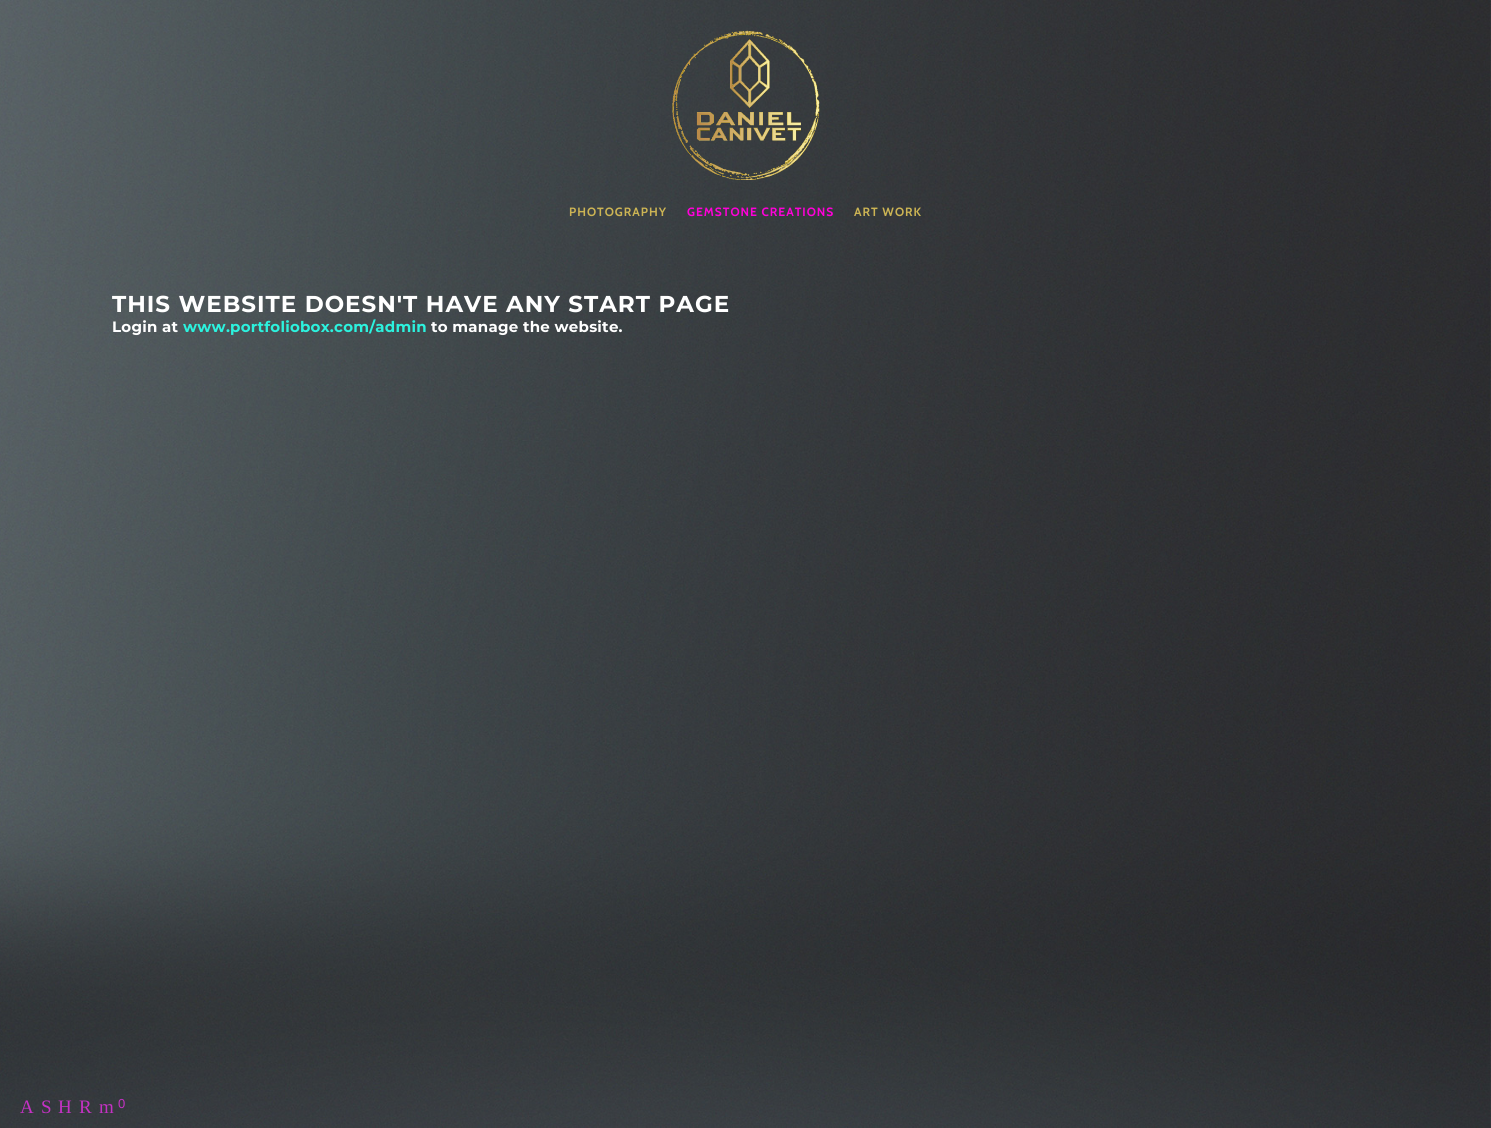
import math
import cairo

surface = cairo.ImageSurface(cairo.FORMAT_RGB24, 1491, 1128)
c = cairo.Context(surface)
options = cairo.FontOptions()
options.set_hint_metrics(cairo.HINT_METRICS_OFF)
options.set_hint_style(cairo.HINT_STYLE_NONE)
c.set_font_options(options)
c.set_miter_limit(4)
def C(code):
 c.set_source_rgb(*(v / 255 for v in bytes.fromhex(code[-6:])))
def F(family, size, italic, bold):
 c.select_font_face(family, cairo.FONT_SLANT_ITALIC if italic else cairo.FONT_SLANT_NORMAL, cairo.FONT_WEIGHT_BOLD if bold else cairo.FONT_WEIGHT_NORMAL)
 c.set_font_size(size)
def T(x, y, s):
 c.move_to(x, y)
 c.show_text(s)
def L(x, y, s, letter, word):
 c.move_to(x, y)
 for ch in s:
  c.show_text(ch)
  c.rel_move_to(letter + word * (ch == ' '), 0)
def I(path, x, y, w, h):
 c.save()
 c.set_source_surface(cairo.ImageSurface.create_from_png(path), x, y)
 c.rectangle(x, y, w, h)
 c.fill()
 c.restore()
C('ffffff')
c.paint()
I('1.png',0,0,1491,1128)
I('2.png',672,30,148,150)
F('Cabin',12,0,1)
C('ccb454')
L(569,216,'PHOTOGRAPHY',1,0)
C('ff00d9')
L(687,216,'GEMSTONE CREATIONS',1,0)
C('ccb454')
L(854,216,'ART WORK',1,0)
F('Montserrat Thin',23,0,0)
C('ffffff')
L(112,312,'THIS WEBSITE DOESN\'T HAVE ANY START PAGE',1,0)
F('Montserrat Thin',15,0,0)
L(112,332,'Login at',.25,0)
C('2cf2de')
L(183,332,'www.portfoliobox.com/admin',.25,0)
C('ffffff')
L(431,332,'to manage the website.',.25,0)
F('Liberation Serif',19,0,0)
C('c431c4')
T(20,1113,'A')
T(41,1113,'S')
T(58,1113,'H')
T(79,1113,'R')
T(99,1113,'m')
F('Liberation Sans',13,0,0)
T(118,1108,'0')
surface.write_to_png('o.png')
